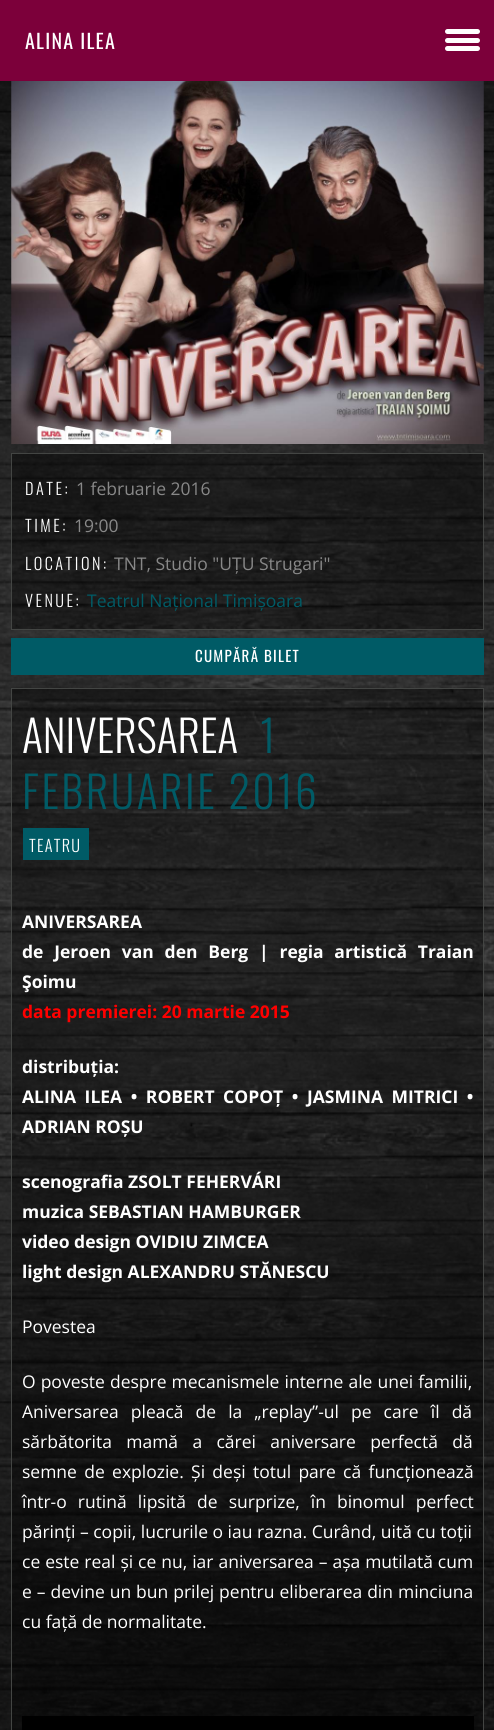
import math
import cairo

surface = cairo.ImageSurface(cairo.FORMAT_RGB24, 494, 1730)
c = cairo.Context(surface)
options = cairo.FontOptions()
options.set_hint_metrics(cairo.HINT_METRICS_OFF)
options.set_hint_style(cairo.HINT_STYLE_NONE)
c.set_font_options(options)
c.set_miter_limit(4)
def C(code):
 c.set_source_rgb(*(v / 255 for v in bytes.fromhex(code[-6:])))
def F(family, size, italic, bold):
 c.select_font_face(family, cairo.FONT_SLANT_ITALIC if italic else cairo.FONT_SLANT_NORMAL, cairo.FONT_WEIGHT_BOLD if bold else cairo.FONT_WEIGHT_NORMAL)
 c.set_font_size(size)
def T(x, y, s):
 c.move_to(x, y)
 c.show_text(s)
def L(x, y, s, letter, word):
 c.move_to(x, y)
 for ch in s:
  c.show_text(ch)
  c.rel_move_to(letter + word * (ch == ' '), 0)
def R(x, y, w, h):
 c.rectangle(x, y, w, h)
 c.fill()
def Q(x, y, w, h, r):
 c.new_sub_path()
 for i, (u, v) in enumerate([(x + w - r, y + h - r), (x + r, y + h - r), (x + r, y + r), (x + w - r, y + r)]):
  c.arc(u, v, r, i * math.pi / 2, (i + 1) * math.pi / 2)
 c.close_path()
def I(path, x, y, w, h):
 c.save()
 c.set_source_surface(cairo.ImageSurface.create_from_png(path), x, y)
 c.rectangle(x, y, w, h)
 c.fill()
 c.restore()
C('ffffff')
c.paint()
C('7c003a')
R(0,0,494,81)
F('Oswald',20,0,0)
C('ffffff')
L(25,49,'ALINA ILEA',1.25,0)
Q(445,29,35,5,2.5)
c.fill()
Q(445,38,35,5,2.5)
c.fill()
Q(445,46,35,5,2.5)
c.fill()
I('1.png',0,81,494,1649)
I('2.png',11,81,473,363)
c.set_source_rgba(0,0,0,0.4)
c.rectangle(11.5,453.5,472,176)
c.fill_preserve()
C('434543')
c.set_line_width(1)
c.stroke()
F('Oswald Light',16.25,0,0)
C('ffffff')
L(25,495,'DATE:',2.5,0)
F('Open Sans',17.5,0,0)
C('888888')
T(76,495,'1 februarie 2016')
F('Oswald Light',16.25,0,0)
C('ffffff')
L(25,532,'TIME:',2.5,0)
F('Open Sans',17.5,0,0)
C('888888')
T(74,532,'19:00')
F('Oswald Light',16.25,0,0)
C('ffffff')
L(25,570,'LOCATION:',2.5,0)
F('Open Sans',17.5,0,0)
C('888888')
T(114,570,'TNT, Studio "UȚU Strugari"')
F('Oswald Light',16.25,0,0)
C('ffffff')
L(25,607,'VENUE:',2.5,0)
F('Open Sans',17.5,0,0)
C('005b66')
T(87,607,'Teatrul Național Timișoara')
R(11,638,473,37)
F('Oswald',15,0,0)
C('ffffff')
L(195,662,'CUMPĂRĂ BILET',1.25,0)
c.set_source_rgba(0,0,0,0.4)
c.rectangle(11.5,688.5,472,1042)
c.fill_preserve()
C('434543')
c.stroke()
F('Oswald Light',43.75,0,0)
C('ffffff')
T(22,753,'ANIVERSAREA')
C('005b66')
L(260,753,'1',2.5,0)
L(22,809,'FEBRUARIE 2016',2.5,0)
R(23,828,66,32)
F('Oswald Light',16.25,0,0)
C('ffffff')
L(29,852,'TEATRU',1.25,0)
F('Open Sans',17.5,0,1)
T(22,928,'ANIVERSAREA')
L(22,958,'de Jeroen van den Berg | regia artistică Traian',0,6.25)
T(22,988,'Şoimu')
C('ff0000')
T(22,1018,'data premierei: 20 martie 2015')
C('ffffff')
T(22,1073,'distribuția:')
L(22,1103,'ALINA ILEA • ROBERT COPOȚ • JASMINA MITRICI •',0,4)
T(22,1133,'ADRIAN ROȘU')
T(22,1188,'scenografia ZSOLT FEHERVÁRI')
T(22,1218,'muzica SEBASTIAN HAMBURGER')
T(22,1248,'video design OVIDIU ZIMCEA')
T(22,1278,'light design ALEXANDRU STĂNESCU')
F('Open Sans',17.5,0,0)
T(22,1333,'Povestea')
L(22,1388,'O poveste despre mecanismele interne ale unei familii,',0,.5)
L(22,1418,'Aniversarea pleacă de la „replay”-ul pe care îl dă',0,7.5)
L(22,1448,'sărbătorita mamă a cărei aniversare perfectă dă',0,9.75)
L(22,1478,'semne de explozie. Și deși totul pare că funcționează',0,2.75)
L(22,1508,'într-o rutină lipsită de surprize, în binomul perfect',0,6.5)
T(22,1538,'părinți – copii, lucrurile o iau razna. Curând, uită cu toții')
L(22,1568,'ce este real și ce nu, iar aniversarea – așa mutilată cum',0,.4)
L(22,1598,'e – devine un bun prilej pentru eliberarea din minciuna',0,.4)
T(22,1628,'cu față de normalitate.')
C('000000')
R(22,1716,452,14)
surface.write_to_png('o.png')
